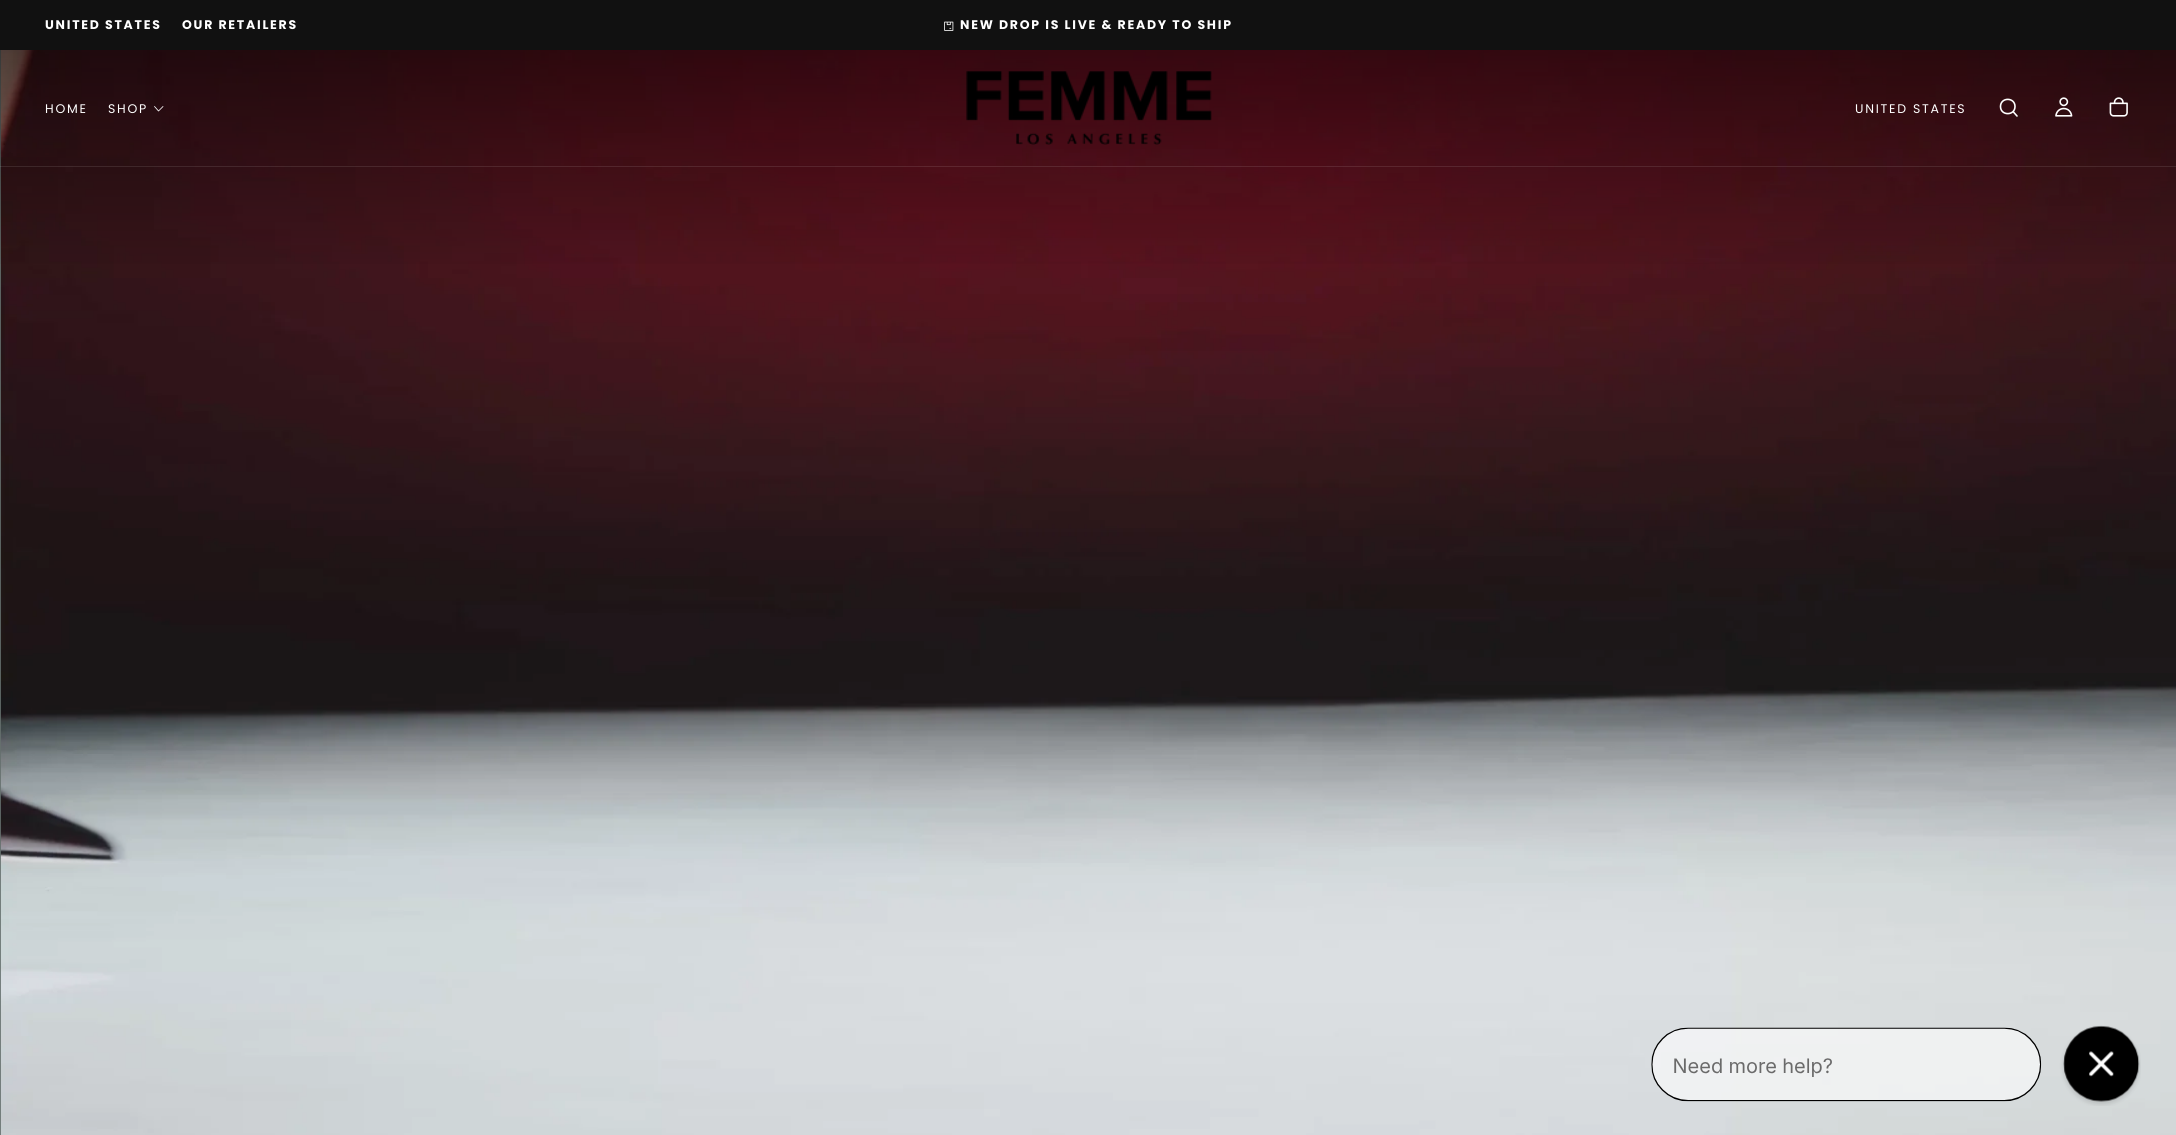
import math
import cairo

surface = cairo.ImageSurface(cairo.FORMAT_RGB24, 2176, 1135)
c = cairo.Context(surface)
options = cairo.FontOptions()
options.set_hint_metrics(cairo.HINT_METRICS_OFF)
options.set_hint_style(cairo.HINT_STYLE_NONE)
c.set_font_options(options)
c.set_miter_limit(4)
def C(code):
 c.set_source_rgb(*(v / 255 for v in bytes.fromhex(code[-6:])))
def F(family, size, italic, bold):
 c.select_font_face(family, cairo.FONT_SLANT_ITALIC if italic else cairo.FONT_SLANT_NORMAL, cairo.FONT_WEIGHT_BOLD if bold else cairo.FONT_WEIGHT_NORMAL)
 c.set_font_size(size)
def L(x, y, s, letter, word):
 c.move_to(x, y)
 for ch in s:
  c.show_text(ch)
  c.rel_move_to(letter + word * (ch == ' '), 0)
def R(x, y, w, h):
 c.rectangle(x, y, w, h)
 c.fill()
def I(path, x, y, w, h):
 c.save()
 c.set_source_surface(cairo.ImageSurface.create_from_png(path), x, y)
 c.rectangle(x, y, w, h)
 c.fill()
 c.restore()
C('65706e')
c.paint()
C('111111')
R(0,0,2176,50)
F('Poppins',12.5,0,1)
C('ffffff')
L(45,29,'UNITED STATES',1.75,0)
L(182,29,'OUR RETAILERS',1.75,0)
I('1.png',944,21,10,10)
L(960,29,'NEW DROP IS LIVE & READY TO SHIP',1.75,0)
I('2.png',0,50,2176,1085)
gradient = cairo.LinearGradient(1088,49,1088,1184)
gradient.add_color_stop_rgba(0,0,0,0,.5)
gradient.add_color_stop_rgba(.2,0,0,0,0)
gradient.add_color_stop_rgba(1,0,0,0,0)
c.set_source(gradient)
R(0,50,2176,214)
c.set_source_rgba(1,1,1,0.1)
R(0,166,2176,1)
F('Poppins',12.5,0,0)
C('ffffff')
L(45,113,'HOME',1.75,0)
L(108,113,'SHOP',1.75,0)
c.new_path()
c.move_to(163,106.5)
c.line_to(158.5,111)
c.line_to(154.5,106.5)
c.set_line_width(.8)
c.set_line_cap(cairo.LINE_CAP_ROUND)
c.set_line_join(cairo.LINE_JOIN_ROUND)
c.stroke()
I('3.png',966,71,246,74)
L(1855,113,'UNITED STATES',1.75,0)
c.new_path()
c.move_to(2017,116)
c.line_to(2013,111.5)
c.move_to(2015,106.5)
c.curve_to(2015,116,2000.5,116,2000.5,106.5)
c.curve_to(2000.5,97,2015,97,2015,106.5)
c.close_path()
c.set_line_width(1.6)
c.set_line_join(cairo.LINE_JOIN_MITER)
c.stroke()
I('4.png',2055,97,18,20)
I('5.png',2109,97,19,20)
I('6.png',1651,1025,490,81)
surface.write_to_png('o.png')
